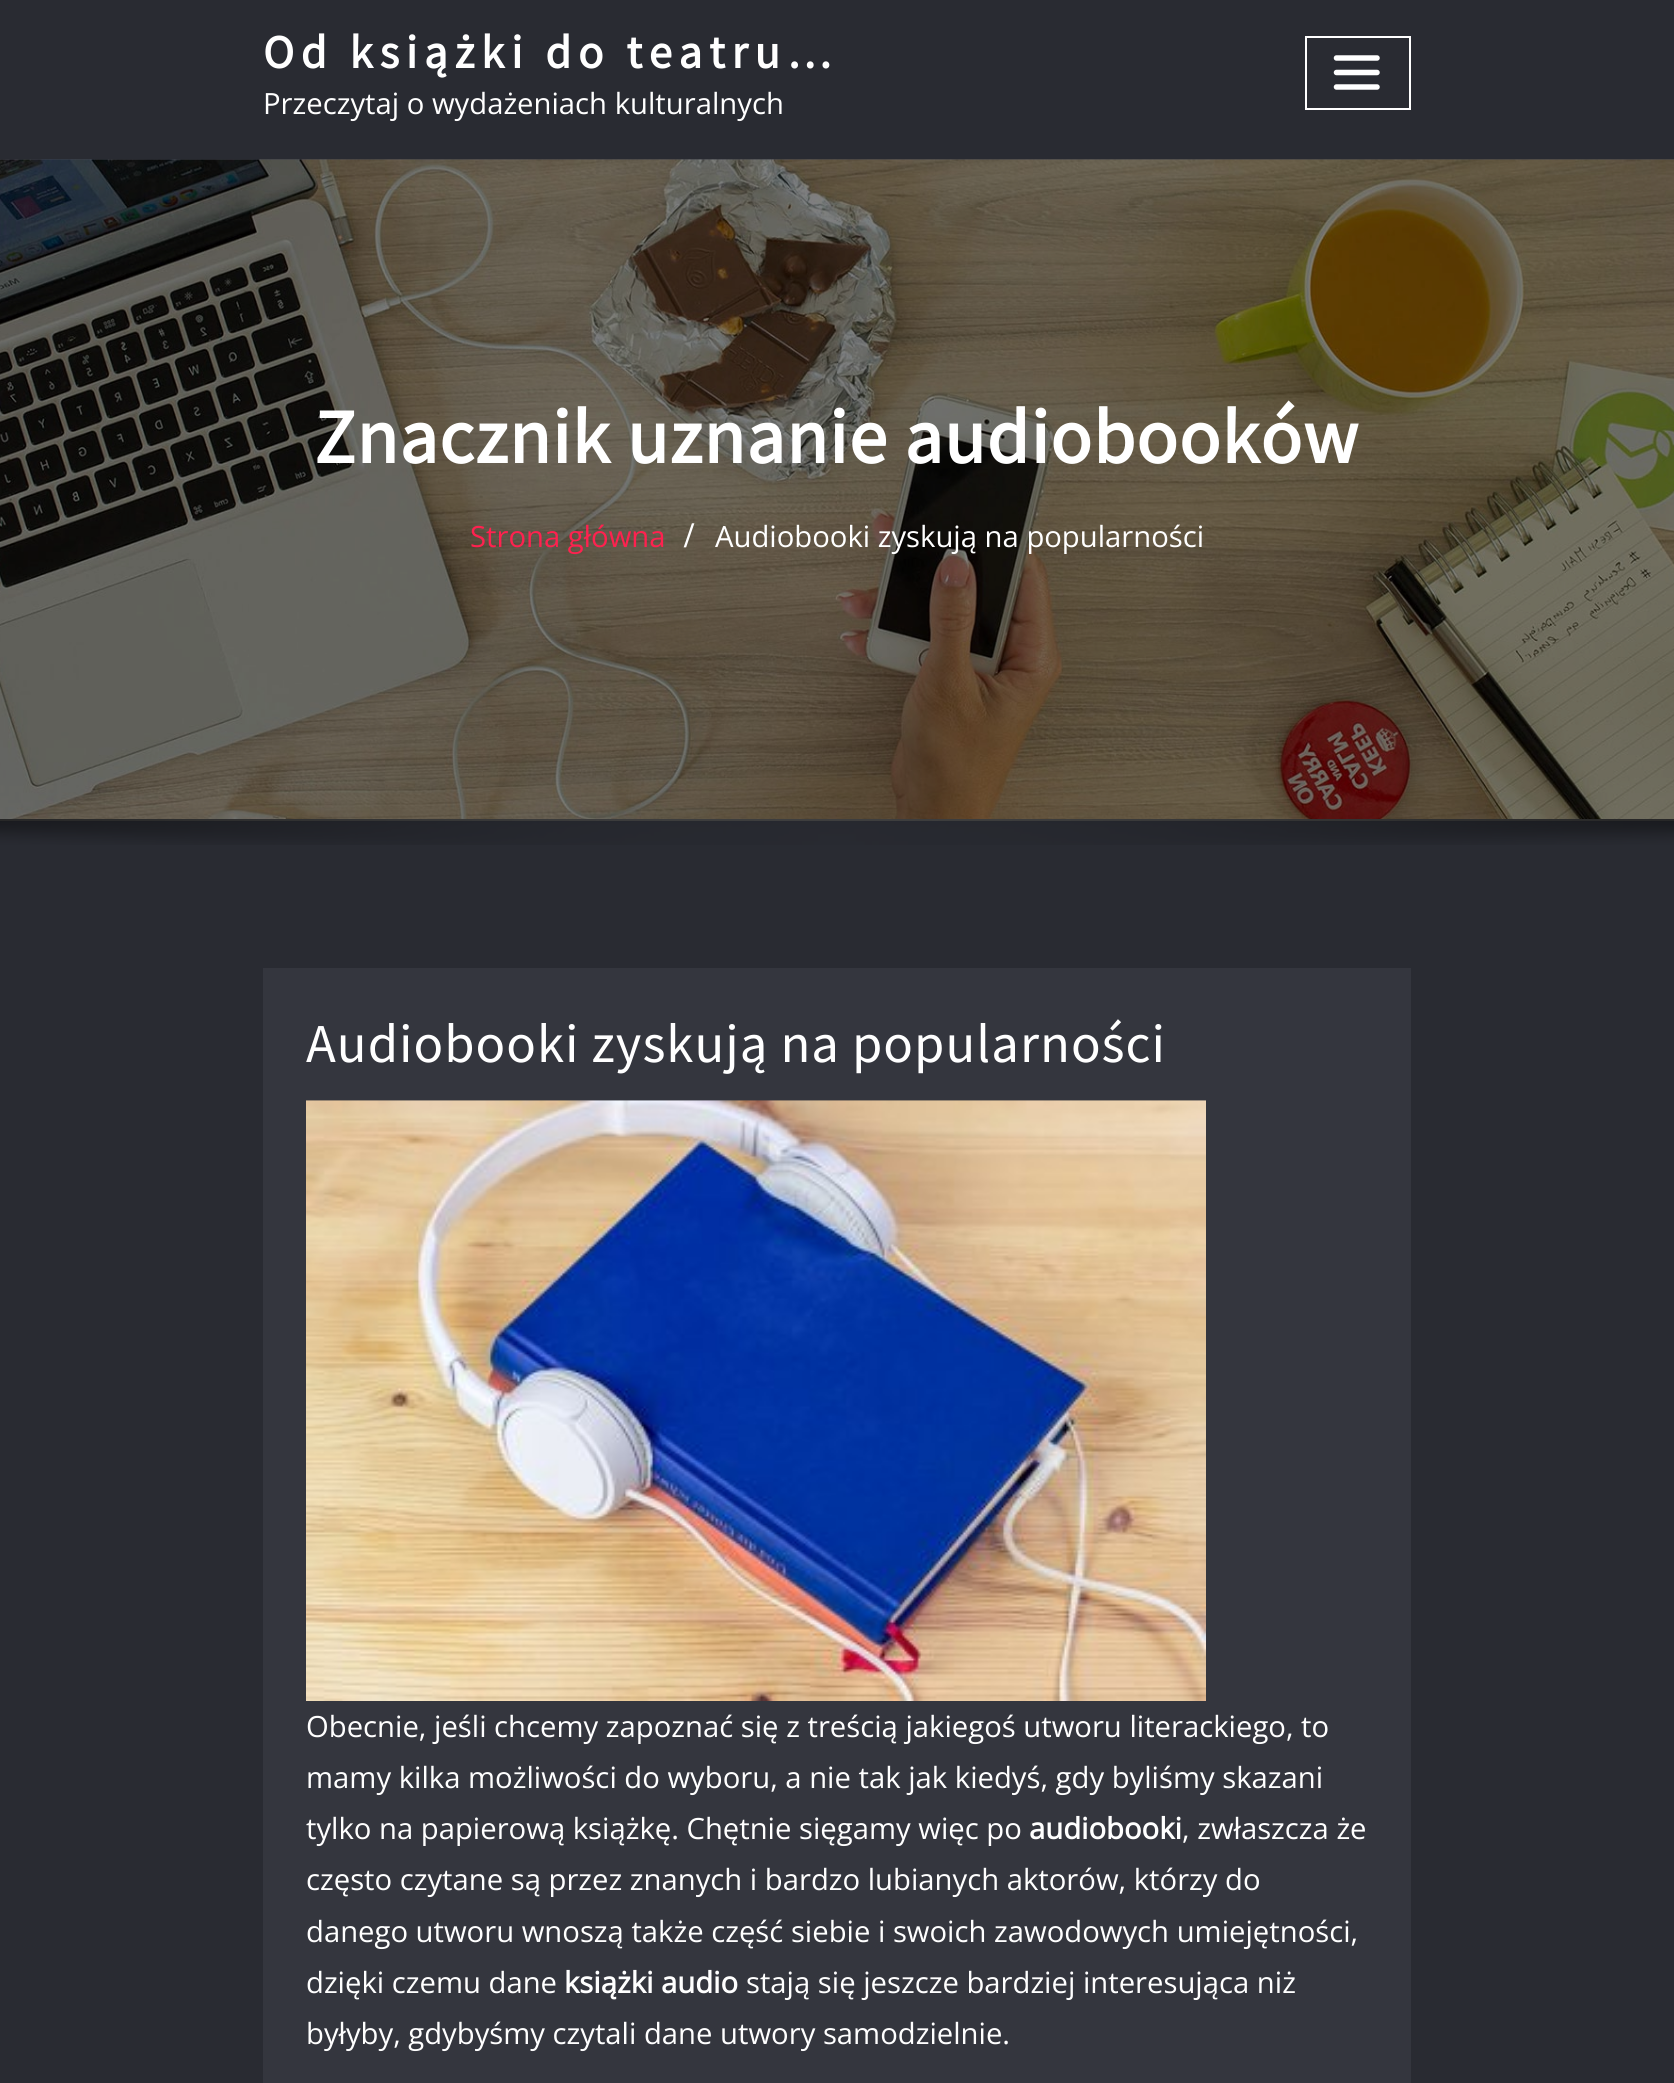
import math
import cairo

surface = cairo.ImageSurface(cairo.FORMAT_RGB24, 1674, 2083)
c = cairo.Context(surface)
options = cairo.FontOptions()
options.set_hint_metrics(cairo.HINT_METRICS_OFF)
options.set_hint_style(cairo.HINT_STYLE_NONE)
c.set_font_options(options)
c.set_miter_limit(4)
def C(code):
 c.set_source_rgb(*(v / 255 for v in bytes.fromhex(code[-6:])))
def F(family, size, italic, bold):
 c.select_font_face(family, cairo.FONT_SLANT_ITALIC if italic else cairo.FONT_SLANT_NORMAL, cairo.FONT_WEIGHT_BOLD if bold else cairo.FONT_WEIGHT_NORMAL)
 c.set_font_size(size)
def T(x, y, s):
 c.move_to(x, y)
 c.show_text(s)
def L(x, y, s, letter, word):
 c.move_to(x, y)
 for ch in s:
  c.show_text(ch)
  c.rel_move_to(letter + word * (ch == ' '), 0)
def R(x, y, w, h):
 c.rectangle(x, y, w, h)
 c.fill()
def I(path, x, y, w, h):
 c.save()
 c.set_source_surface(cairo.ImageSurface.create_from_png(path), x, y)
 c.rectangle(x, y, w, h)
 c.fill()
 c.restore()
C('292b32')
c.paint()
F('Source Sans Pro',46.75,0,1)
C('ffffff')
L(263,68,'Od książki do teatru…',6.75,0)
F('Open Sans',29.25,0,0)
T(263,114,'Przeczytaj o wydażeniach kulturalnych')
c.rectangle(1306,37,104,72)
c.stroke()
c.new_path()
c.move_to(1336.5,58)
c.line_to(1377,58)
c.move_to(1336.5,72.5)
c.line_to(1377,72.5)
c.move_to(1336.5,87)
c.line_to(1377,87)
c.set_line_width(5.5)
c.set_line_cap(cairo.LINE_CAP_ROUND)
c.stroke()
I('1.png',0,159,1674,660)
F('Source Sans Pro',76.75,0,1)
L(314,463,'Znacznik uznanie audiobooków',1,0)
F('Open Sans',29.25,0,0)
C('ff214f')
T(470,547,'Strona główna')
F('Liberation Serif',36,0,1)
C('ffffff')
L(684,547,'/',3,0)
F('Open Sans',29.25,0,0)
T(715,547,'Audiobooki zyskują na popularności')
C('424242')
R(0,819,1674,2)
I('2.png',0,819,1674,26)
C('34363e')
R(263,968,1148,1115)
F('Source Sans Pro',54.8,0,0)
C('ffffff')
L(306,1062,'Audiobooki zyskują na popularności',1,0)
I('3.png',306,1100,900,601)
F('Open Sans',29.25,0,0)
T(306,1737,'Obecnie, jeśli chcemy zapoznać się z treścią jakiegoś utworu literackiego, to')
T(306,1788,'mamy kilka możliwości do wyboru, a nie tak jak kiedyś, gdy byliśmy skazani')
T(306,1839,'tylko na papierową książkę. Chętnie sięgamy więc po')
F('Open Sans',29.25,0,1)
T(1029,1839,'audiobooki')
F('Open Sans',29.25,0,0)
T(1182,1839,', zwłaszcza że')
T(306,1890,'często czytane są przez znanych i bardzo lubianych aktorów, którzy do')
T(306,1942,'danego utworu wnoszą także część siebie i swoich zawodowych umiejętności,')
T(306,1993,'dzięki czemu dane')
F('Open Sans',29.25,0,1)
T(564,1993,'książki audio')
F('Open Sans',29.25,0,0)
T(746,1993,'stają się jeszcze bardziej interesująca niż')
T(306,2044,'byłyby, gdybyśmy czytali dane utwory samodzielnie.')
surface.write_to_png('o.png')
